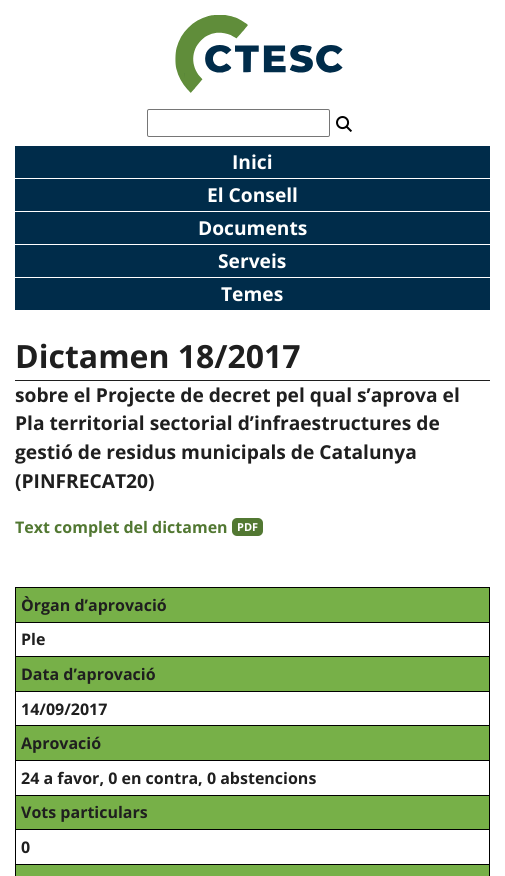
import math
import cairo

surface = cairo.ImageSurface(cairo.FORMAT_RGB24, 505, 876)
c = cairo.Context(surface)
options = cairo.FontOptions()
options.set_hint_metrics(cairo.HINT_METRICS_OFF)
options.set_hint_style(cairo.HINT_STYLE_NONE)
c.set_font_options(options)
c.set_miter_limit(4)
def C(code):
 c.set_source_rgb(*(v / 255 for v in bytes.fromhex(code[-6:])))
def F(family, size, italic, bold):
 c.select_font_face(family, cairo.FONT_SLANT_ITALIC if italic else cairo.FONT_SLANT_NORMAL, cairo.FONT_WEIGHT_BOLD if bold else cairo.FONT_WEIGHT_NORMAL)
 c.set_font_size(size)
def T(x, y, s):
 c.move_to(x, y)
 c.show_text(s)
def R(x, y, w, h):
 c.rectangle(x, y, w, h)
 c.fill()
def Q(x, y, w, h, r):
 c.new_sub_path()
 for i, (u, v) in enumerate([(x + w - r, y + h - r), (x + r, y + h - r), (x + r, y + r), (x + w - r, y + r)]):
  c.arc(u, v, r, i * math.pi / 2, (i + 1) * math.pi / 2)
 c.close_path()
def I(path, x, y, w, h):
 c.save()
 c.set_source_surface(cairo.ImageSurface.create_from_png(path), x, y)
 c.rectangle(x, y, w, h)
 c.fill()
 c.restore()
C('ffffff')
c.paint()
I('1.png',175,15,168,78)
Q(147.5,109.5,182,27,1.5)
C('767676')
c.set_line_width(1)
c.stroke()
I('2.png',336,116,16,16)
C('002c4a')
R(15,146,475,164)
F('Open Sans',19.2,0,1)
C('ffffff')
T(232,169,'Inici')
R(15,178,475,1)
T(207,202,'El Consell')
R(15,211,475,1)
T(198,235,'Documents')
R(15,244,475,1)
T(218,268,'Serveis')
R(15,277,475,1)
T(221,301,'Temes')
C('1f1f1f')
R(15,380,475,1)
F('Open Sans',32,0,1)
T(15,368,'Dictamen 18/2017')
F('Open Sans',19.2,0,1)
T(15,402,'sobre el Projecte de decret pel qual s’aprova el')
T(15,430,'Pla territorial sectorial d’infraestructures de')
T(15,459,'gestió de residus municipals de Catalunya')
T(15,488,'(PINFRECAT20)')
F('Open Sans',16,0,1)
C('527832')
T(15,533,'Text complet del dictamen')
Q(232,518,31,18,5)
c.fill()
F('Open Sans',11,0,1)
C('ffffff')
T(237,531,'PDF')
C('77b048')
c.rectangle(15.5,587.5,474,35)
c.fill_preserve()
C('000000')
c.stroke()
F('Open Sans',16,0,1)
C('1f1f1f')
T(21,611,'Òrgan d’aprovació')
C('000000')
R(489,623,1,253)
R(15,656,475,1)
R(15,623,1,34)
C('1f1f1f')
T(21,645,'Ple')
C('77b048')
R(16,657,473,34)
C('000000')
R(15,691,475,1)
R(15,657,1,35)
C('1f1f1f')
T(21,680,'Data d’aprovació')
C('000000')
R(15,725,475,1)
R(15,692,1,34)
C('1f1f1f')
T(21,715,'14/09/2017')
C('77b048')
R(16,726,473,34)
C('000000')
R(15,760,475,1)
R(15,726,1,35)
C('1f1f1f')
T(21,749,'Aprovació')
C('000000')
R(15,795,475,1)
R(15,761,1,35)
C('1f1f1f')
T(21,784,'24 a favor, 0 en contra, 0 abstencions')
C('77b048')
R(16,796,473,33)
C('000000')
R(15,829,475,1)
R(15,796,1,34)
C('1f1f1f')
T(21,818,'Vots particulars')
C('000000')
R(15,864,475,1)
R(15,830,1,46)
C('1f1f1f')
T(21,853,'0')
C('77b048')
R(16,865,473,11)
surface.write_to_png('o.png')
